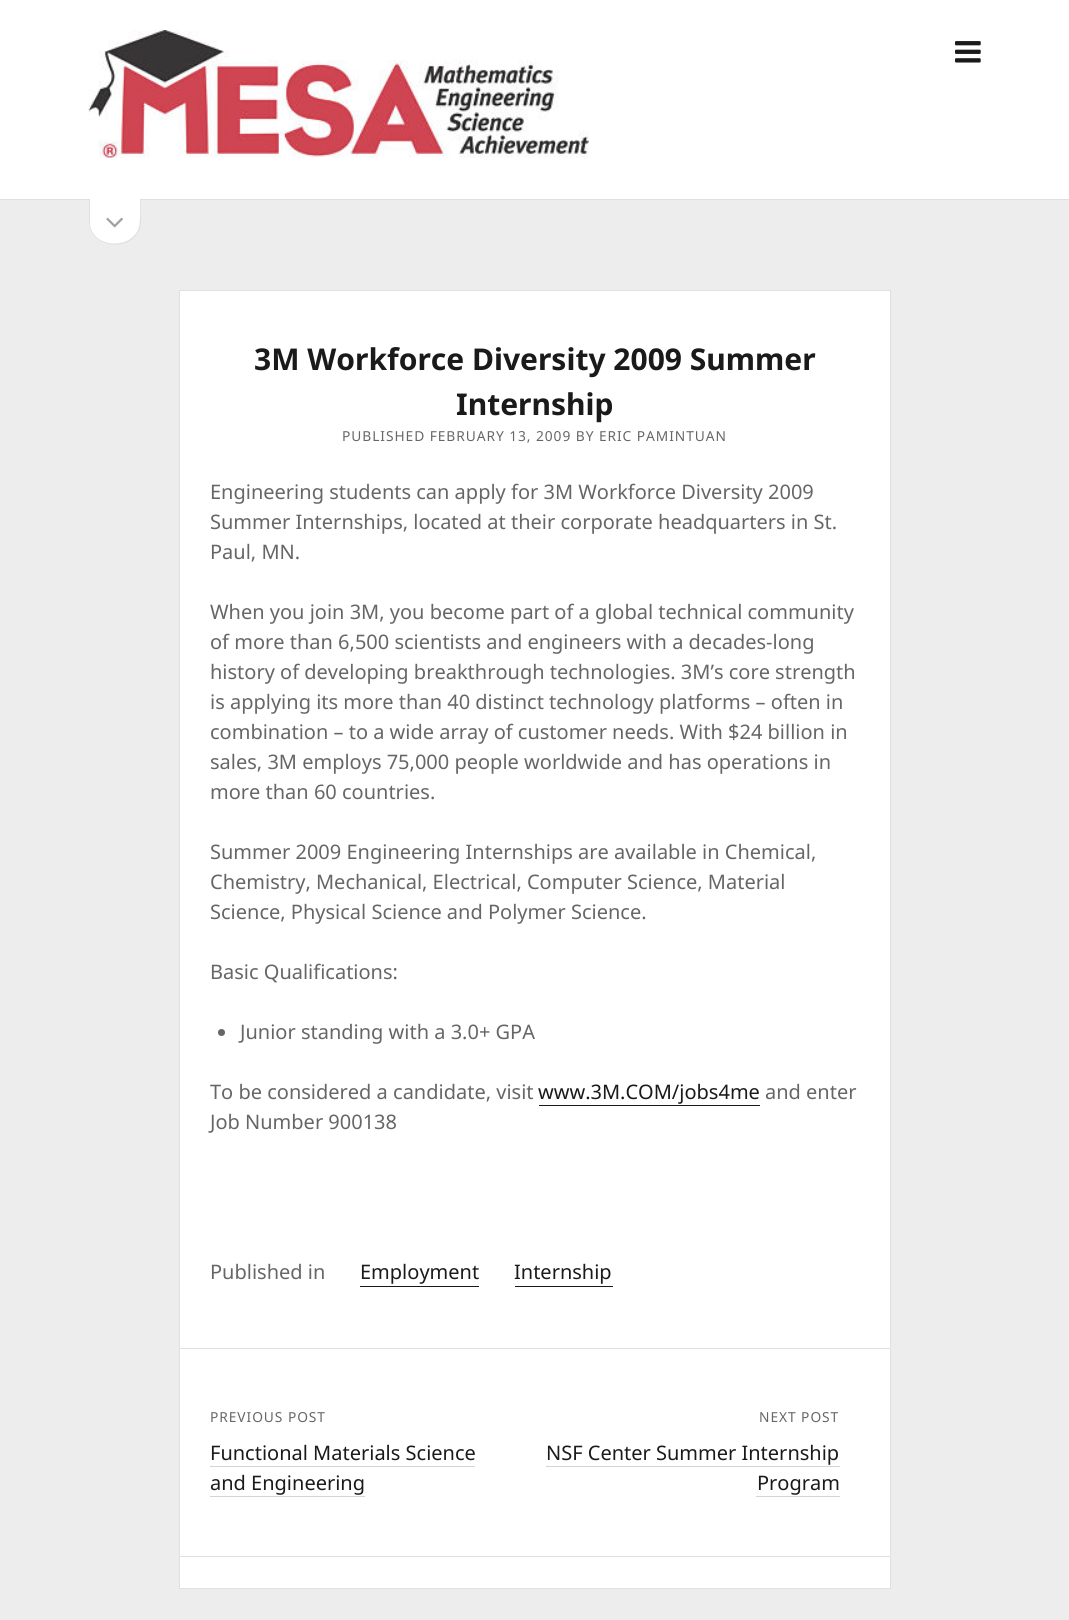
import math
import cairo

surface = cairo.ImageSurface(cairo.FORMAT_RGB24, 1069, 1620)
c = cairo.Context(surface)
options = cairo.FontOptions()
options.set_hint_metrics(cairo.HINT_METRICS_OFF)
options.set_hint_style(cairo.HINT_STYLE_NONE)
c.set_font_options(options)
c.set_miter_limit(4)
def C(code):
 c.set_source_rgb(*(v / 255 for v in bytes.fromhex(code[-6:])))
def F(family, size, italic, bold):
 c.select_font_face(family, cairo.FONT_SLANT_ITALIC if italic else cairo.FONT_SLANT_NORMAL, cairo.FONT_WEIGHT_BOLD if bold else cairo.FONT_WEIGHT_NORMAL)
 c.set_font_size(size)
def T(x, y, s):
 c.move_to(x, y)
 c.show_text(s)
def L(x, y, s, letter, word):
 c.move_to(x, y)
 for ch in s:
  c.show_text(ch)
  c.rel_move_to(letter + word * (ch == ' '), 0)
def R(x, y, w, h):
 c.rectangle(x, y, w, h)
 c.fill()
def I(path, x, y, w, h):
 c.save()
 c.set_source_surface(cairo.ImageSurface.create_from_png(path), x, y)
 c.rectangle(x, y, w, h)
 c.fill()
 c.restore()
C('ededed')
c.paint()
C('ffffff')
R(0,0,1069,199)
C('e0e0e0')
R(0,199,1069,1)
I('1.png',88,30,501,128)
I('2.png',955,41,26,22)
C('ffffff')
c.new_path()
c.move_to(89,199)
c.line_to(141,199)
c.curve_to(141,207,143,223,139,231)
c.curve_to(129,253,89,248,89,222)
c.close_path()
c.fill()
C('e0e0e0')
c.set_fill_rule(cairo.FILL_RULE_EVEN_ODD)
c.new_path()
c.move_to(89,199)
c.line_to(141,199)
c.curve_to(141,207,143,223,139,231)
c.curve_to(129,253,89,248,89,222)
c.close_path()
c.move_to(90,199)
c.line_to(140,199)
c.curve_to(140,207,141,223,138,230)
c.curve_to(128,251,90,247,90,222)
c.close_path()
c.fill()
I('3.png',106,217,17,11)
C('ffffff')
c.rectangle(179.5,290.5,711,1298)
c.fill_preserve()
C('e0e0e0')
c.set_line_width(1)
c.stroke()
F('Noto Sans',30,0,1)
C('1a1a1a')
T(254,370,'3M Workforce Diversity 2009 Summer')
T(456,415,'Internship')
F('Noto Sans',13.75,0,0)
C('666666')
L(342,441,'PUBLISHED FEBRUARY 13, 2009 BY ERIC PAMINTUAN',.95,0)
F('Noto Sans',20,0,0)
T(210,499,'Engineering students can apply for 3M Workforce Diversity 2009')
T(210,529,'Summer Internships, located at their corporate headquarters in St.')
T(210,559,'Paul, MN.')
T(210,619,'When you join 3M, you become part of a global technical community')
T(210,649,'of more than 6,500 scientists and engineers with a decades-long')
T(210,679,'history of developing breakthrough technologies. 3M’s core strength')
T(210,709,'is applying its more than 40 distinct technology platforms – often in')
T(210,739,'combination – to a wide array of customer needs. With $24 billion in')
T(210,769,'sales, 3M employs 75,000 people worldwide and has operations in')
T(210,799,'more than 60 countries.')
T(210,859,'Summer 2009 Engineering Internships are available in Chemical,')
T(210,889,'Chemistry, Mechanical, Electrical, Computer Science, Material')
T(210,919,'Science, Physical Science and Polymer Science.')
T(210,979,'Basic Qualifications:')
c.new_path()
c.arc(221.5,1032.5,3.5,0,2 * math.pi)
c.fill()
T(240,1039,'Junior standing with a 3.0+ GPA')
T(210,1099,'To be considered a candidate, visit')
C('1a1a1a')
T(538,1099,'www.3M.COM/jobs4me')
R(539,1105,221,1)
C('666666')
T(765,1099,'and enter')
T(210,1129,'Job Number 900138')
T(210,1279,'Published in')
C('1a1a1a')
R(360,1286,119,1)
T(360,1279,'Employment')
R(515,1286,98,1)
T(514,1279,'Internship')
C('e0e0e0')
R(180,1348,710,1)
F('Noto Sans',13.75,0,0)
C('666666')
L(210,1422,'PREVIOUS POST',.95,0)
F('Noto Sans',20,0,0)
C('1a1a1a')
T(210,1460,'Functional Materials Science')
C('d4d4d4')
R(210,1466,265,1)
C('1a1a1a')
T(210,1490,'and Engineering')
C('d4d4d4')
R(210,1496,155,1)
F('Noto Sans',13.75,0,0)
C('666666')
L(759,1422,'NEXT POST',.95,0)
F('Noto Sans',20,0,0)
C('1a1a1a')
T(546,1460,'NSF Center Summer Internship')
C('d4d4d4')
R(546,1466,294,1)
C('1a1a1a')
T(757,1490,'Program')
C('d4d4d4')
R(756,1496,84,1)
C('e0e0e0')
R(180,1556,710,1)
surface.write_to_png('o.png')
